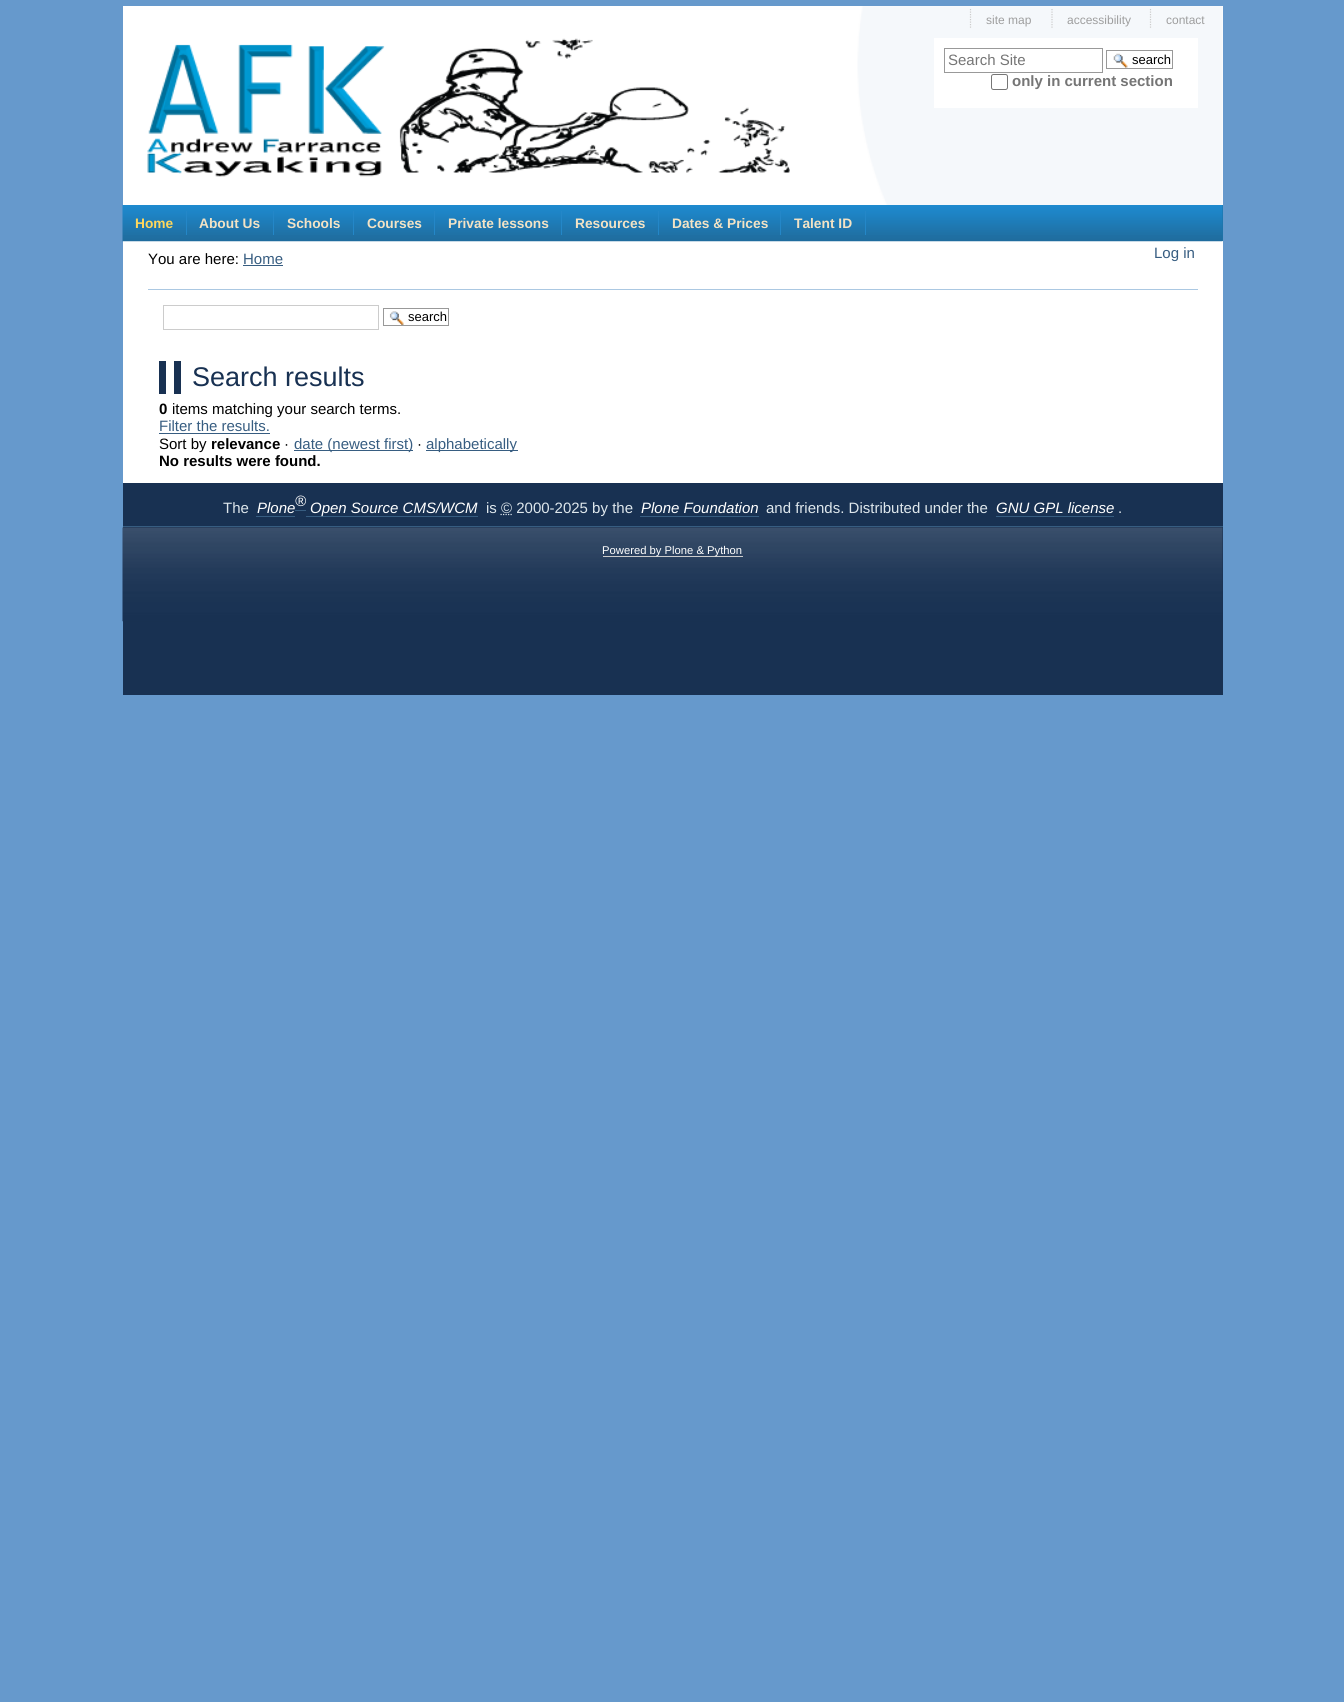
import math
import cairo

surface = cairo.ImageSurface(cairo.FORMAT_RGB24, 1344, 1702)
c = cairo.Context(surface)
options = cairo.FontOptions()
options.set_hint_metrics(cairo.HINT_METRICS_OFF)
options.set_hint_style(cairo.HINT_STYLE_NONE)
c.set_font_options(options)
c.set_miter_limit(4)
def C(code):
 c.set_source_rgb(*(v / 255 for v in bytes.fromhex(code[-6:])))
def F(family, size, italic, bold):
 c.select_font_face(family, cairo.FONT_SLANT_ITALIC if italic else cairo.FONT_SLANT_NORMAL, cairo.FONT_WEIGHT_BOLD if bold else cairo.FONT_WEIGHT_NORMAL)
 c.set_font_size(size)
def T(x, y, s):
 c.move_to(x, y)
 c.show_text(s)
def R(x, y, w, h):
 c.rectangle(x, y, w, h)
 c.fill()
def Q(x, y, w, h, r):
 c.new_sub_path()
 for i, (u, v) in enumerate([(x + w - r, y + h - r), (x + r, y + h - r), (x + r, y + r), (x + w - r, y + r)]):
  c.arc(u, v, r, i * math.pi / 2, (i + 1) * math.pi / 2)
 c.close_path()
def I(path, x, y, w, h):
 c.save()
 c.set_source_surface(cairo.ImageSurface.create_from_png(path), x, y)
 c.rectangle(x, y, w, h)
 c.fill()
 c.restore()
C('6699cc')
c.paint()
C('ffffff')
R(123,6,1100,477)
I('1.png',857,6,366,199)
F('Liberation Sans',12,0,0)
C('9e9e9e')
T(986,24,'site map')
c.new_path()
c.move_to(970.5,9)
c.line_to(970.5,29)
C('cccccc')
c.set_line_width(1.2)
c.set_dash([1.25,1.25])
c.stroke()
C('9e9e9e')
T(1067,24,'accessibility')
c.new_path()
c.move_to(1052,9)
c.line_to(1052,29)
C('cccccc')
c.stroke()
C('9e9e9e')
T(1166,24,'contact')
c.new_path()
c.move_to(1150.5,9)
c.line_to(1150.5,29)
C('cccccc')
c.stroke()
I('2.png',147,38,643,139)
C('ffffff')
R(934,38,264,70)
c.rectangle(944.5,48.5,158,24)
C('999999')
c.set_line_width(1)
c.set_dash([])
c.stroke()
F('Liberation Sans',15,0,0)
C('757575')
T(948,65,'Search Site')
I('3.png',1113,53,15,15)
c.rectangle(1106.5,50.5,66,18)
C('999999')
c.stroke()
F('Liberation Sans',13,0,0)
C('000000')
T(1132,64,'search')
Q(991.5,74.5,16,15,2)
C('767676')
c.stroke()
F('Liberation Sans',15,0,1)
C('757575')
T(1012,86,'only in current section')
C('1f72a6')
R(1222,205,1,36)
I('4.png',122,205,1101,37)
C('2487c8')
R(186,211,1,24)
F('Liberation Sans',13.75,0,1)
C('ffd75b')
T(135,228,'Home')
C('2487c8')
R(273,211,1,24)
C('f3e3c5')
T(199,228,'About Us')
C('2487c8')
R(353,211,1,24)
C('f3e3c5')
T(287,228,'Schools')
C('2487c8')
R(434,211,1,24)
C('f3e3c5')
T(367,228,'Courses')
C('2487c8')
R(561,211,1,24)
C('f3e3c5')
T(448,228,'Private lessons')
C('2487c8')
R(658,211,1,24)
C('f3e3c5')
T(575,228,'Resources')
C('2487c8')
R(780,211,1,24)
C('f3e3c5')
T(672,228,'Dates & Prices')
C('2487c8')
R(865,211,1,24)
C('f3e3c5')
T(794,228,'Talent ID')
F('Liberation Sans',15,0,0)
C('000000')
T(148,264,'You are here:')
C('375d81')
T(243,264,'Home')
R(243,265,40,1)
T(1154,258,'Log in')
C('abc8e2')
R(148,289,1050,1)
c.rectangle(163.5,305.5,215,24)
C('cccccc')
c.stroke()
I('5.png',389,311,15,14)
c.rectangle(383.5,308.5,65,17)
C('999999')
c.stroke()
F('Liberation Sans',13,0,0)
C('000000')
T(408,321,'search')
C('183152')
R(159,361,7,33)
R(174,361,7,33)
F('Liberation Sans',27,0,0)
T(192,386,'Search results')
F('Liberation Sans',15,0,1)
C('000000')
T(159,414,'0')
F('Liberation Sans',15,0,0)
T(172,414,'items matching your search terms.')
C('375d81')
T(159,431,'Filter the results.')
R(159,433,111,1)
C('000000')
T(159,449,'Sort by')
F('Liberation Sans',15,0,1)
T(211,449,'relevance')
F('Liberation Sans',15,0,0)
T(284,449,'·')
C('375d81')
R(294,450,119,1)
T(294,449,'date (newest first)')
C('000000')
T(417,449,'·')
C('375d81')
R(426,450,92,1)
T(426,449,'alphabetically')
F('Liberation Sans',15,0,1)
C('000000')
T(159,466,'No results were found.')
C('183152')
R(123,483,1100,43)
F('Liberation Sans',15,0,0)
C('dee7ec')
T(223,513,'The')
F('Liberation Sans',15,1,0)
C('ffffff')
T(257,513,'Plone')
C('375d81')
R(256,516,39,1)
R(295,510,11,1)
C('ffffff')
T(295,506,'®')
C('375d81')
R(306,516,172,1)
C('ffffff')
T(310,513,'Open Source CMS/WCM')
F('Liberation Sans',15,0,0)
C('dee7ec')
T(486,513,'is')
c.new_path()
c.move_to(500.5,514.5)
c.line_to(512,514.5)
c.set_line_width(1.2)
c.set_dash([1.25,1.25])
c.stroke()
T(501,513,'© 2000-2025 by the')
F('Liberation Sans',15,1,0)
C('ffffff')
T(641,513,'Plone Foundation')
C('375d81')
R(640,516,119,1)
F('Liberation Sans',15,0,0)
C('dee7ec')
T(766,513,'and friends. Distributed under the')
F('Liberation Sans',15,1,0)
C('ffffff')
T(996,513,'GNU GPL license')
C('375d81')
R(996,516,118,1)
F('Liberation Sans',15,0,0)
C('dee7ec')
T(1118,513,'.')
C('183152')
R(123,527,1100,168)
I('6.png',122,527,1101,95)
C('375d81')
R(123,526,1100,1)
C('cccccc')
R(603,556,140,1)
F('Liberation Sans',11.25,0,0)
C('ffffff')
T(602,554,'Powered by Plone & Python')
surface.write_to_png('o.png')
